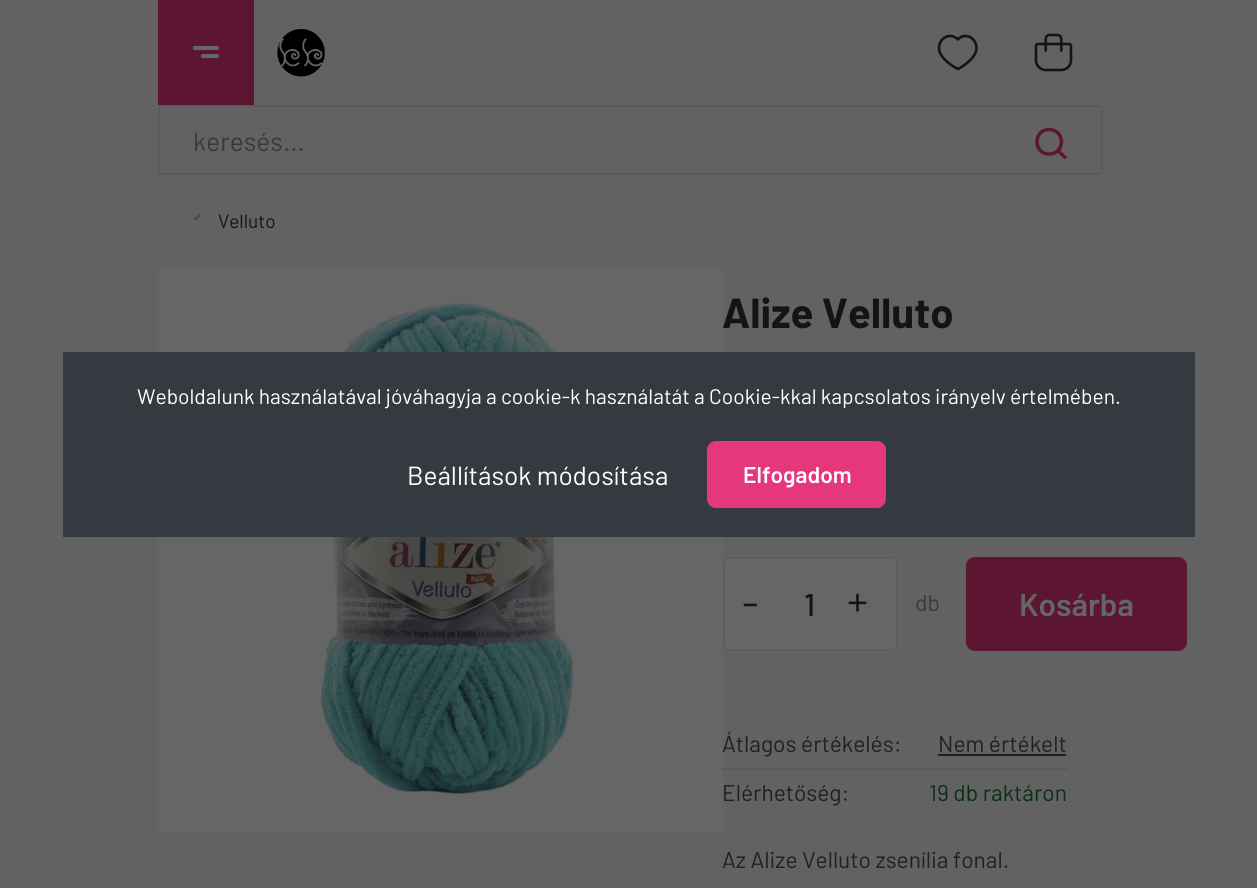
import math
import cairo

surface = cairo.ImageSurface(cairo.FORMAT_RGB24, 1257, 888)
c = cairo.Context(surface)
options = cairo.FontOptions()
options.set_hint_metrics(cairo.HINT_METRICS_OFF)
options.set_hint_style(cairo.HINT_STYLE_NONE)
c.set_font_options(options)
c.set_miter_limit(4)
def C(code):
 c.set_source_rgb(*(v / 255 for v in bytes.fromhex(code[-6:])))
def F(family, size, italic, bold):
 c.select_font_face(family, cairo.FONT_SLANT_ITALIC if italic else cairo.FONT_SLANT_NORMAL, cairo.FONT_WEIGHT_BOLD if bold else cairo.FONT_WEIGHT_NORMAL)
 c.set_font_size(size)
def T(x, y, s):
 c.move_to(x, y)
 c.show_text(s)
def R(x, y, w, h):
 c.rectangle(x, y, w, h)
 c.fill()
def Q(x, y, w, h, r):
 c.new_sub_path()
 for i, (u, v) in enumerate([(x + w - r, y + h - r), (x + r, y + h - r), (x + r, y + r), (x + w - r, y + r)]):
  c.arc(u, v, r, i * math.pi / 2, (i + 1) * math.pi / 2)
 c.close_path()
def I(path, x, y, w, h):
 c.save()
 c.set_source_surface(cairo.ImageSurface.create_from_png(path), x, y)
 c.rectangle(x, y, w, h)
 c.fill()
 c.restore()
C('626262')
c.paint()
C('5c1632')
R(158,0,96,105)
C('666666')
Q(193,46,26,4,2)
c.fill()
Q(201,54,18,4,2)
c.fill()
I('1.png',276,28,50,49)
c.new_path()
c.move_to(965.5,36)
c.curve_to(972,36,976.5,42,976.5,48)
c.curve_to(976.5,59.5,958,69,958,69)
c.curve_to(957.5,69,939,59.5,939,48)
c.curve_to(939,42,943.5,36,950,36)
c.curve_to(954,36,956.5,38,958,39.5)
c.curve_to(959,38,961.5,36,965.5,36)
c.close_path()
C('131414')
c.set_line_width(2.6)
c.set_line_cap(cairo.LINE_CAP_ROUND)
c.set_line_join(cairo.LINE_JOIN_ROUND)
c.stroke()
I('2.png',1034,33,39,39)
c.rectangle(159,106,943,68)
C('5b5b5e')
c.set_line_width(2)
c.set_line_cap(cairo.LINE_CAP_BUTT)
c.set_line_join(cairo.LINE_JOIN_MITER)
c.stroke()
F('Barlow',26.25,0,0)
C('3a3a3b')
T(193,151,'keresés...')
c.save()
c.rectangle(1034,128,34,31)
c.clip()
c.new_path()
c.move_to(1065,157.5)
c.line_to(1058,150.5)
c.move_to(1049,154)
c.curve_to(1033,154,1033,129.5,1049,129.5)
c.curve_to(1065.5,129.5,1065.5,154,1049,154)
c.close_path()
C('5c1632')
c.set_line_width(3.5)
c.set_line_cap(cairo.LINE_CAP_ROUND)
c.set_line_join(cairo.LINE_JOIN_ROUND)
c.stroke()
c.restore()
I('3.png',193,214,8,6)
F('Barlow',19,0,0)
C('131414')
T(218,228,'Velluto')
I('4.png',157,268,566,565)
F('Barlow',42,0,1)
T(722,328,'Alize Velluto')
C('666666')
Q(724,558,173,92,4)
c.fill_preserve()
C('5e5e62')
c.stroke()
F('Barlow',42,0,0)
C('131414')
T(742,618,'-')
F('Barlow Medium',31.5,0,0)
T(804,616,'1')
F('Barlow',42,0,0)
T(847,616,'+')
F('Barlow',22.75,0,0)
C('3a3a3b')
T(915,611,'db')
C('5c1632')
Q(966,557,221,94,9)
c.fill()
F('Barlow SemiBold',31.5,0,0)
C('666666')
T(1019,616,'Kosárba')
F('Barlow',22.75,0,0)
C('202021')
T(722,752,'Átlagos értékelés:')
T(938,752,'Nem értékelt')
R(938,754,128,2)
T(722,801,'Elérhetőség:')
C('5b5b5e')
R(721,768,347,2)
C('092f16')
T(929,801,'19 db raktáron')
C('202021')
T(722,868,'Az Alize Velluto zsenília fonal.')
C('343a40')
R(63,352,1132,185)
F('Barlow',21,0,0)
C('ffffff')
T(137,404,'Weboldalunk használatával jóváhagyja a cookie-k használatát a Cookie-kkal kapcsolatos irányelv értelmében.')
F('Barlow',26.25,0,0)
T(407,485,'Beállítások módosítása')
C('e5377c')
Q(707,441,179,67,9)
c.fill()
F('Barlow SemiBold',22.75,0,0)
C('ffffff')
T(743,483,'Elfogadom')
surface.write_to_png('o.png')
